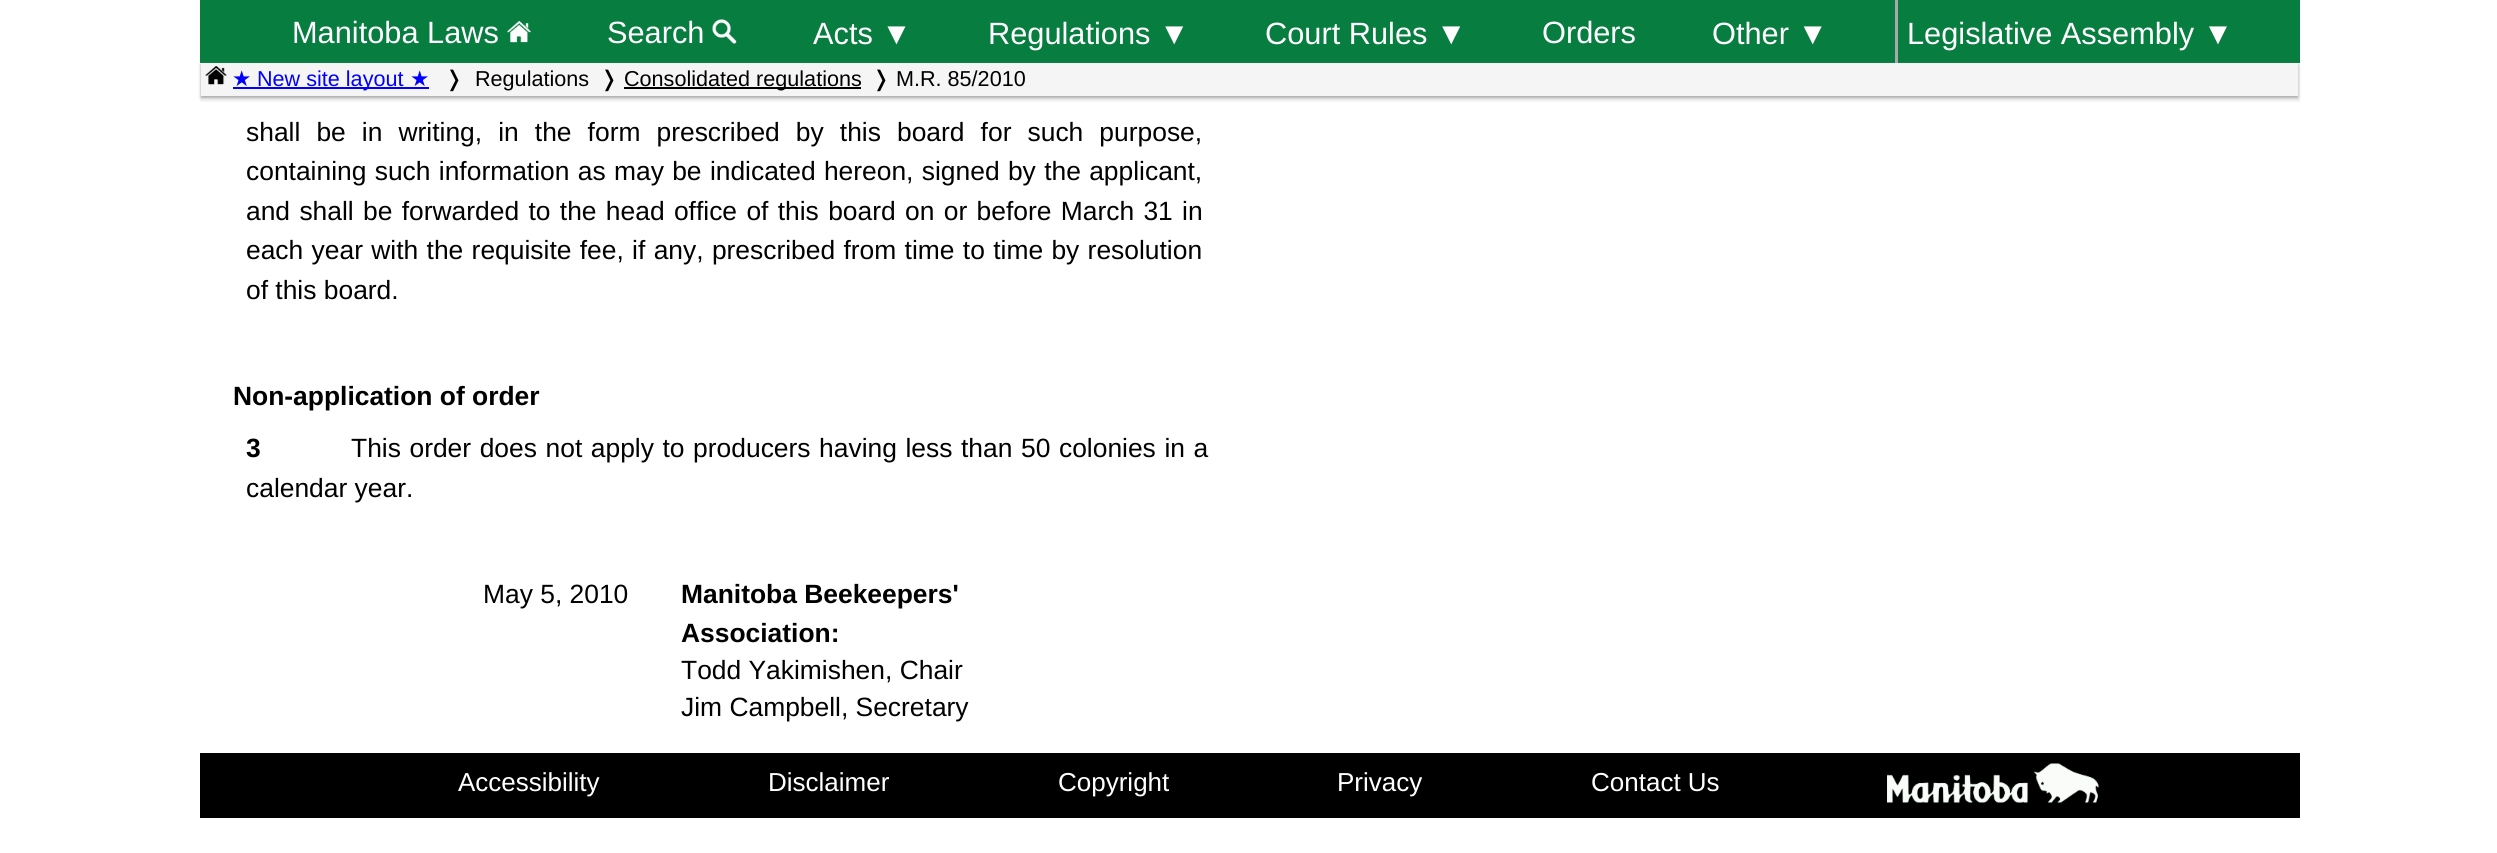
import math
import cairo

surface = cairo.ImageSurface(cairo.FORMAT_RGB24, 2497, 853)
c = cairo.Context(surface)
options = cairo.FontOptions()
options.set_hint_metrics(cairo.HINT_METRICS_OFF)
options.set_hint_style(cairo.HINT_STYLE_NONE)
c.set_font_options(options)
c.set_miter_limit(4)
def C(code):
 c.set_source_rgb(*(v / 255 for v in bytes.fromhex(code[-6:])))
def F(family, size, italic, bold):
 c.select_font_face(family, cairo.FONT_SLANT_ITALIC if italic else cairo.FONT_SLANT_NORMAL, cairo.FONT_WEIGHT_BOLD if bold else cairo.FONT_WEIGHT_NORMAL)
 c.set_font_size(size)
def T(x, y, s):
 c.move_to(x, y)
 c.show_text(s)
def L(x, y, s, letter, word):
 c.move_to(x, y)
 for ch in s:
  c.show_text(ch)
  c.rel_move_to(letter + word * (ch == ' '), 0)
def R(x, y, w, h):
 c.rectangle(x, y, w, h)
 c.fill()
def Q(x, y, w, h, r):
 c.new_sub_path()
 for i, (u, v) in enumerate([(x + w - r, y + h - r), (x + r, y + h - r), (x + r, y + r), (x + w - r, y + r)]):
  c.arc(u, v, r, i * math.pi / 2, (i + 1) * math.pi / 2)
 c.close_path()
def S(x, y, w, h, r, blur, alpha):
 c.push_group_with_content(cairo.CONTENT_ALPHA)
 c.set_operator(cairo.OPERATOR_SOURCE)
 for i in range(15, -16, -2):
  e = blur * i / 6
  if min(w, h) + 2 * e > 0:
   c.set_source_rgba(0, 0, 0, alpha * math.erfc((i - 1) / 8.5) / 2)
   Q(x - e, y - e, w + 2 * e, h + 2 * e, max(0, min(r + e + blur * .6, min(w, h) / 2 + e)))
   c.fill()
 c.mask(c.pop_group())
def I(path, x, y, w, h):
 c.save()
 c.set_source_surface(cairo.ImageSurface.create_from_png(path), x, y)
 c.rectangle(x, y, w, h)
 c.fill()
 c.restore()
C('ffffff')
c.paint()
C('f5f5f5')
R(200,63,2100,39)
C('077d40')
R(200,0,2100,63)
F('Liberation Sans',30.75,0,0)
C('ffffff')
T(292,43,'Manitoba Laws')
I('1.png',507,20,24,23)
T(607,43,'Search')
I('2.png',712,19,25,25)
T(813,44,'Acts ▼')
T(988,44,'Regulations ▼')
T(1265,44,'Court Rules ▼')
T(1542,43,'Orders')
T(1712,44,'Other ▼')
C('a9a9a9')
R(1895,0,3,63)
C('ffffff')
T(1907,44,'Legislative Assembly ▼')
c.save()
c.set_fill_rule(cairo.FILL_RULE_EVEN_ODD)
c.new_path()
c.move_to(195,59)
c.line_to(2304,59)
c.line_to(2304,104)
c.line_to(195,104)
c.close_path()
c.move_to(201,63)
c.line_to(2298,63)
c.line_to(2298,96)
c.line_to(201,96)
c.close_path()
c.clip()
C('a9a9a9')
S(201,65,2097,33,0,1.5,1)
c.restore()
I('3.png',205,66,22,19)
F('DejaVu Sans',21.6,0,0)
C('0000ff')
T(232,86,'★')
R(233,87,196,2)
F('Liberation Sans',21.6,0,0)
T(257,86,'New site layout')
F('DejaVu Sans',21.6,0,0)
T(410,86,'★')
C('000000')
T(445,86,'❭')
F('Liberation Sans',21.6,0,0)
T(475,86,'Regulations')
F('DejaVu Sans',21.6,0,0)
T(600,86,'❭')
R(624,87,237,2)
F('Liberation Sans',21.6,0,0)
T(624,86,'Consolidated regulations')
F('DejaVu Sans',21.6,0,0)
T(872,86,'❭')
F('Liberation Sans',21.6,0,0)
T(896,86,'M.R. 85/2010')
F('Liberation Sans',26.4,0,0)
L(246,141,'shall be in writing, in the form prescribed by this board for such purpose,',0,8.75)
L(246,180,'containing such information as may be indicated hereon, signed by the applicant,',0,1)
L(246,220,'and shall be forwarded to the head office of this board on or before March 31 in',0,2)
L(246,259,'each year with the requisite fee, if any, prescribed from time to time by resolution',0,1)
T(246,299,'of this board.')
F('Liberation Sans',26.4,0,1)
T(233,405,'Non-application of order')
T(246,457,'3')
F('Liberation Sans',26.4,0,0)
L(351,457,'This order does not apply to producers having less than 50 colonies in a',0,1.25)
T(246,497,'calendar year.')
T(483,603,'May 5, 2010')
F('Liberation Sans',26.4,0,1)
T(681,603,'Manitoba Beekeepers\'')
T(681,642,'Association:')
F('Liberation Sans',26.4,0,0)
T(681,679,'Todd Yakimishen, Chair')
T(681,716,'Jim Campbell, Secretary')
R(200,753,2100,65)
F('Liberation Sans',26,0,0)
C('ffffff')
T(458,791,'Accessibility')
T(768,791,'Disclaimer')
T(1058,791,'Copyright')
T(1337,791,'Privacy')
T(1591,791,'Contact Us')
I('4.png',1887,763,212,40)
surface.write_to_png('o.png')
